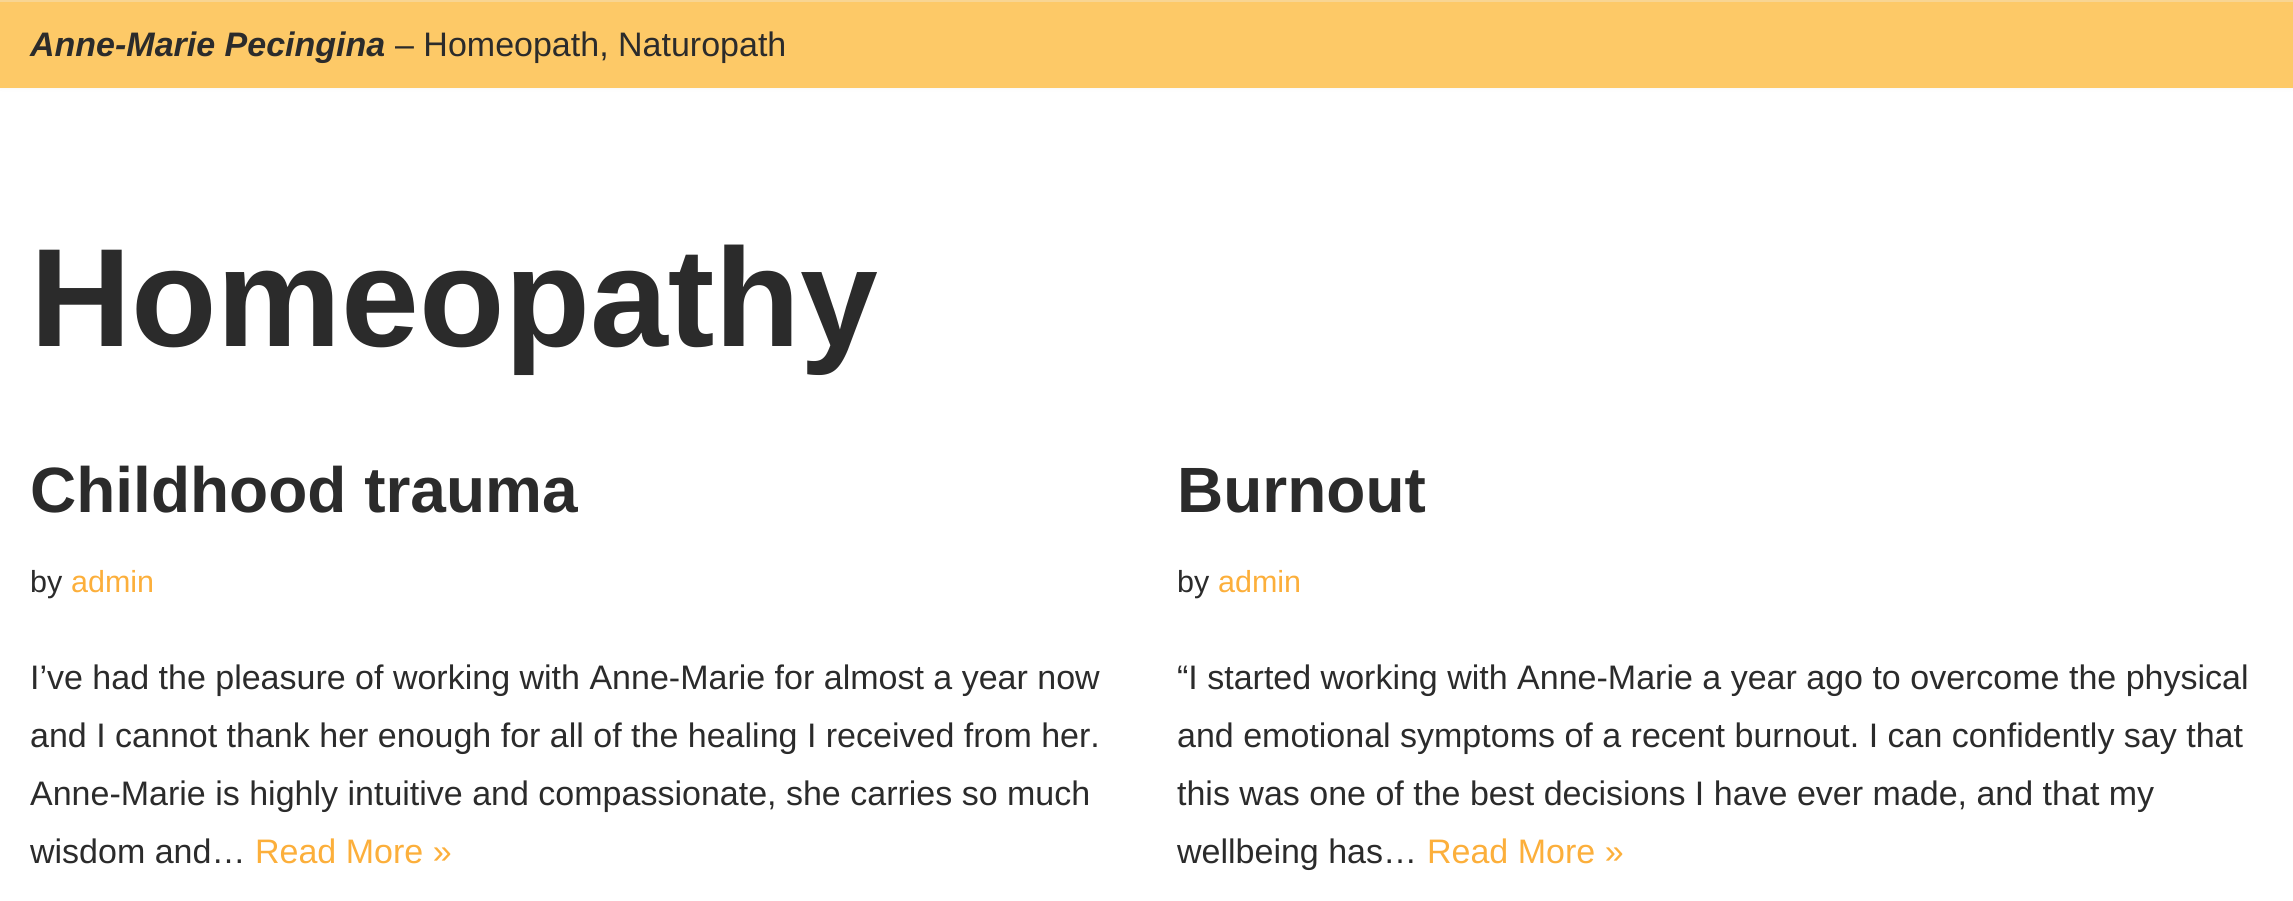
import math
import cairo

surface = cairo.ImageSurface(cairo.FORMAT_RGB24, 2293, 901)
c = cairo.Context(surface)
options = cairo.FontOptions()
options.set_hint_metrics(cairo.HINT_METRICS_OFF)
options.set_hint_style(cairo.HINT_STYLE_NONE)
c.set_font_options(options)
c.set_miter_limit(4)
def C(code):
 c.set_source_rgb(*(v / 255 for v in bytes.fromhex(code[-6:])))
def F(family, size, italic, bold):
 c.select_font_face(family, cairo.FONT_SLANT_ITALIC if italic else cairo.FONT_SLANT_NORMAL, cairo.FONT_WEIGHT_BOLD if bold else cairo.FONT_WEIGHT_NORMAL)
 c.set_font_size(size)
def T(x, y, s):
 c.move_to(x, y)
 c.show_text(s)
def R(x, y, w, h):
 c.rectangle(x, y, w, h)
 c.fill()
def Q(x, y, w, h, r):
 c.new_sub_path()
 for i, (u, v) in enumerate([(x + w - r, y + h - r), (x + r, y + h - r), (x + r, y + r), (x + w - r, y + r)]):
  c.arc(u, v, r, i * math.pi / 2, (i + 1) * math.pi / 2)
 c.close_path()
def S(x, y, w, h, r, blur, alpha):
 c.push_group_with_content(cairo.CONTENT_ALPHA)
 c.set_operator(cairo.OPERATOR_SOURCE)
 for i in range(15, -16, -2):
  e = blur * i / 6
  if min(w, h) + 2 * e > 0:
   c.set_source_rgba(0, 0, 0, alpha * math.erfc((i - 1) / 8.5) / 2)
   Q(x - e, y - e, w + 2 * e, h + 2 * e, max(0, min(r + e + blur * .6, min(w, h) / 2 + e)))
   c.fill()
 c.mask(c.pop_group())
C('ffffff')
c.paint()
C('000000')
S(0,-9,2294,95,0,3,.1)
C('f8d592')
R(0,0,2293,2)
C('fdc967')
R(0,2,2293,86)
F('Liberation Sans',34,1,1)
C('2b2b2b')
T(30,56,'Anne-Marie Pecingina')
F('Liberation Sans',34,0,0)
T(395,56,'– Homeopath, Naturopath')
F('Liberation Sans',140,0,1)
T(30,346,'Homeopathy')
F('Liberation Sans',64,0,1)
T(30,512,'Childhood trauma')
F('Liberation Sans',30.5,0,0)
T(30,592,'by')
C('fcaf3b')
T(71,592,'admin')
F('Liberation Sans',34,0,0)
C('2b2b2b')
T(30,689,'I’ve had the pleasure of working with Anne-Marie for almost a year now')
T(30,747,'and I cannot thank her enough for all of the healing I received from her.')
T(30,805,'Anne-Marie is highly intuitive and compassionate, she carries so much')
T(30,863,'wisdom and…')
C('fcaf3b')
T(255,863,'Read More »')
F('Liberation Sans',64,0,1)
C('2b2b2b')
T(1177,512,'Burnout')
F('Liberation Sans',30.5,0,0)
T(1177,592,'by')
C('fcaf3b')
T(1218,592,'admin')
F('Liberation Sans',34,0,0)
C('2b2b2b')
T(1177,689,'“I started working with Anne-Marie a year ago to overcome the physical')
T(1177,747,'and emotional symptoms of a recent burnout. I can confidently say that')
T(1177,805,'this was one of the best decisions I have ever made, and that my')
T(1177,863,'wellbeing has…')
C('fcaf3b')
T(1427,863,'Read More »')
surface.write_to_png('o.png')
